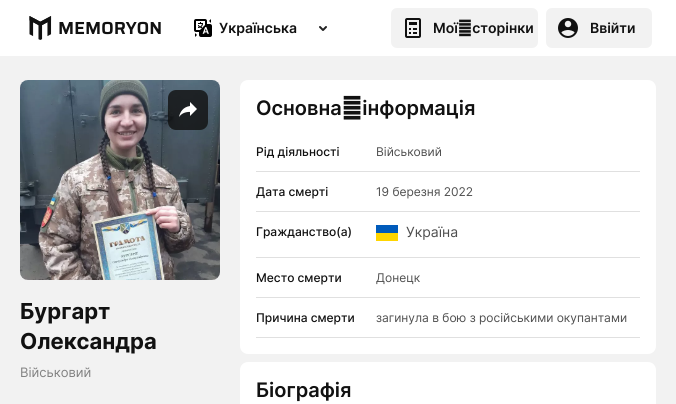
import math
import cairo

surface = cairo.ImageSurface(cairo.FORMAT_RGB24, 676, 404)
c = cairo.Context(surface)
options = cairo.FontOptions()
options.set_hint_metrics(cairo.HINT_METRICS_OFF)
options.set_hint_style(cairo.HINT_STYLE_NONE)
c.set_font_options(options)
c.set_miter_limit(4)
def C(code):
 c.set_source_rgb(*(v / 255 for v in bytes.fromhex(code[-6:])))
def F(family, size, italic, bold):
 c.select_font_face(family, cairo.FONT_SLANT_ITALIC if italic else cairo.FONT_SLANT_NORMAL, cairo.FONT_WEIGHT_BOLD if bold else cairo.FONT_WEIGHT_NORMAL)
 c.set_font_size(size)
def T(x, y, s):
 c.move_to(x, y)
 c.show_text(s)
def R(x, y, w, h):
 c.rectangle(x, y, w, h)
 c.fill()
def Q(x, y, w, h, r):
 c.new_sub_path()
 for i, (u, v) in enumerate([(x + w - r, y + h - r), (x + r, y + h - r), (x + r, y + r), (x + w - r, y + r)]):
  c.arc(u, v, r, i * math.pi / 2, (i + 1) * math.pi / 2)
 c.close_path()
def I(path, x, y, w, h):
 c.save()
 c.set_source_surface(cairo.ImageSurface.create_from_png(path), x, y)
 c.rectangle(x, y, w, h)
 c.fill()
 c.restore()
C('f2f2f2')
c.paint()
C('ffffff')
R(0,0,676,56)
I('1.png',29,16,132,24)
I('2.png',194,19,18,18)
F('Inter SemiBold',14,0,0)
C('111111')
T(219,33,'Українська')
I('3.png',319,26,8,5)
C('f2f2f2')
Q(391,8,147,40,6)
c.fill()
I('4.png',405,18,16,20)
C('111111')
T(433,33,'Мої сторінки')
C('f2f2f2')
Q(546,8,106,40,6)
c.fill()
I('5.png',558,18,20,20)
C('111111')
T(590,33,'Ввійти')
I('6.png',20,80,200,200)
c.set_source_rgba(0.067,0.067,0.067,0.8)
Q(168,90,40,40,8)
c.fill()
I('7.png',179,102,18,15)
F('Inter',22,0,1)
C('111111')
T(20,319,'Бургарт')
T(20,349,'Олександра')
F('Inter',13,0,0)
C('828282')
T(20,377,'Військовий')
C('ffffff')
Q(240,80,416,274,8)
c.fill()
F('Inter SemiBold',20,0,0)
C('111111')
T(256,115,'Основна інформація')
C('e0e0e0')
R(256,171,384,1)
F('Inter Medium',12,0,0)
C('111111')
T(256,156,'Рід діяльності')
F('Inter',12,0,0)
C('4f4f4f')
T(376,156,'Військовий')
C('e0e0e0')
R(256,211,384,1)
F('Inter Medium',12,0,0)
C('111111')
T(256,196,'Дата смерті')
F('Inter',12,0,0)
C('4f4f4f')
T(376,196,'19 березня 2022')
C('e0e0e0')
R(256,257,384,1)
F('Inter Medium',12,0,0)
C('111111')
T(256,236,'Гражданство(а)')
C('ffd500')
R(376,233,22,8)
C('005bbb')
R(376,225,22,8)
F('Inter',14,0,0)
C('4f4f4f')
T(406,237,'Україна')
C('e0e0e0')
R(256,297,384,1)
F('Inter Medium',12,0,0)
C('111111')
T(256,282,'Место смерти')
F('Inter',12,0,0)
C('4f4f4f')
T(376,282,'Донецк')
C('e0e0e0')
R(256,337,384,1)
F('Inter Medium',12,0,0)
C('111111')
T(256,322,'Причина смерти')
F('Inter',12,0,0)
C('4f4f4f')
T(376,322,'загинула в бою з російськими окупантами')
C('ffffff')
Q(240,362,416,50,8)
c.fill()
F('Inter SemiBold',20,0,0)
C('111111')
T(256,397,'Біографія')
surface.write_to_png('o.png')
